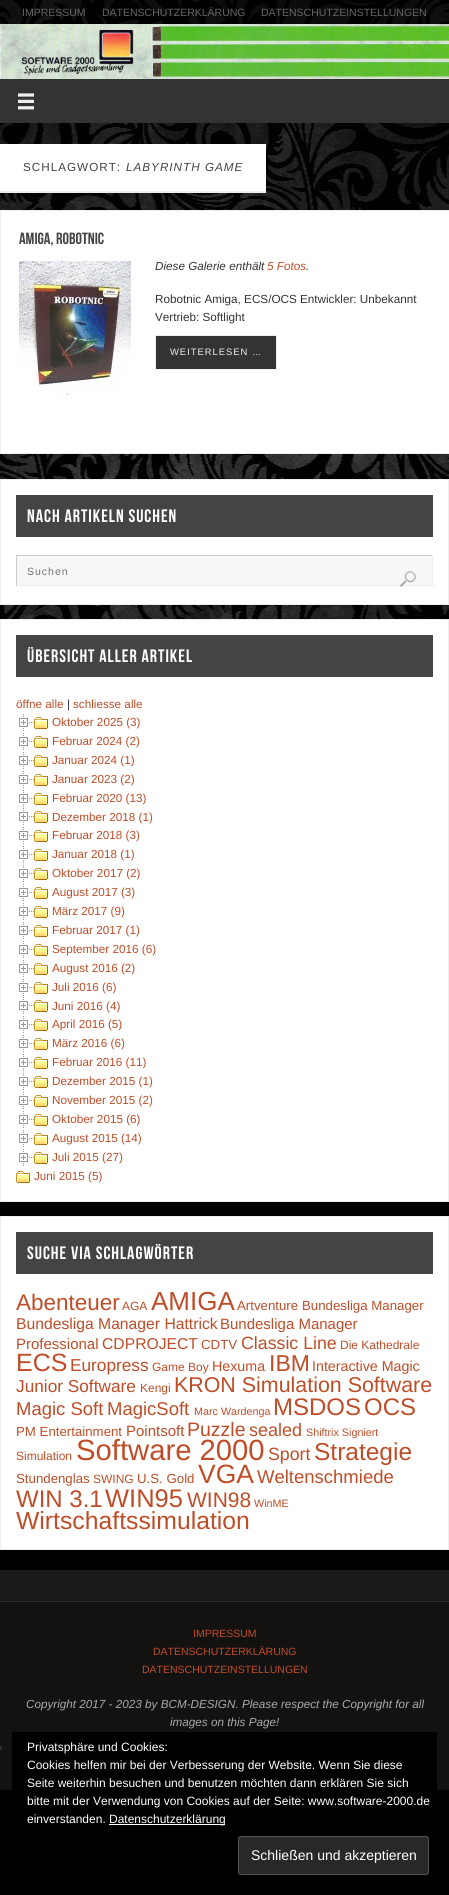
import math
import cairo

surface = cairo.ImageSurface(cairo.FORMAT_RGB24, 449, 1895)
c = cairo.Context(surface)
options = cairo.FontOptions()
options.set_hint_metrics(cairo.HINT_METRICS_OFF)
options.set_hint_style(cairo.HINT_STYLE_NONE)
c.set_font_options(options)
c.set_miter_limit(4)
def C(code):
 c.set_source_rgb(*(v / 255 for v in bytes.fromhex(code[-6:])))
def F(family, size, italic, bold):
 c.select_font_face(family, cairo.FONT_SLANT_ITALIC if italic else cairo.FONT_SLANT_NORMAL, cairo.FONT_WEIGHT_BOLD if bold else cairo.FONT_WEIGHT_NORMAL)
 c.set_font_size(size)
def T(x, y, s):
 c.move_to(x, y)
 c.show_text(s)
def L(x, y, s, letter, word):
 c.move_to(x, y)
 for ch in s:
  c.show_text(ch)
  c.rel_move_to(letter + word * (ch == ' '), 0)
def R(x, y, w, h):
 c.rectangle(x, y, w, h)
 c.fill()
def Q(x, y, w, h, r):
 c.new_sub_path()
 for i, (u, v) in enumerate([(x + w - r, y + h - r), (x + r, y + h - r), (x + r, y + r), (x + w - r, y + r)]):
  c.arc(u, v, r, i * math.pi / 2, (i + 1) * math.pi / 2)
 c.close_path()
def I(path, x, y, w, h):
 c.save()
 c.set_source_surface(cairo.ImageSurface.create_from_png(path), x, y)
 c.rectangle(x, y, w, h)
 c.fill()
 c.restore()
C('000000')
c.paint()
I('1.png',0,0,449,619)
F('Liberation Sans',10.5,0,0)
C('666666')
T(22,16,'IMPRESSUM')
T(102,16,'DATENSCHUTZERKLÄRUNG')
T(261,16,'DATENSCHUTZEINSTELLUNGEN')
I('2.png',0,24,449,55)
C('333333')
R(0,79,449,44)
I('3.png',18,93,16,17)
C('ffffff')
R(0,144,266,47)
C('eeeeee')
R(0,191,266,2)
F('Liberation Sans',11.7,0,0)
C('444444')
L(23,171,'SCHLAGWORT:',1,0)
F('Liberation Sans',11.7,1,0)
L(126,171,'LABYRINTH GAME',1,0)
C('ffffff')
c.rectangle(.5,210.5,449,243)
c.fill_preserve()
C('eeeeee')
c.set_line_width(1)
c.stroke()
F('Bebas Neue',16.25,0,0)
C('444444')
T(19,244,'Amiga, Robotnic')
I('4.png',19,261,112,135)
F('Liberation Sans',11.7,1,0)
C('333333')
T(155,270,'Diese Galerie enthält')
C('bf4d28')
T(267,270,'5 Fotos')
C('333333')
T(306,270,'.')
F('Liberation Sans',11.7,0,0)
T(155,303,'Robotnic Amiga, ECS/OCS Entwickler: Unbekannt')
T(155,321,'Vertrieb: Softlight')
c.rectangle(155.5,335.5,121,34)
c.fill_preserve()
C('eeeeee')
c.stroke()
F('Liberation Sans',9.4,0,0)
L(170,355,'WEITERLESEN …',1,0)
C('ffffff')
c.rectangle(.5,479.5,448,125)
c.fill_preserve()
C('eeeeee')
c.stroke()
C('444444')
R(16,495,417,42)
F('Bebas Neue',18,0,0)
C('ffffff')
L(27,522,'NACH ARTIKELN SUCHEN',1,0)
C('f7f7f7')
R(17,556,415,29)
C('cccccc')
R(16,555,417,1)
C('eeeeee')
R(432,555,1,31)
R(16,585,417,1)
C('cccccc')
R(16,555,1,31)
F('Liberation Sans',10.5,0,0)
C('757575')
L(27,575,'Suchen',1,0)
I('5.png',400,571,16,16)
C('ffffff')
c.rectangle(.5,619.5,448,582)
c.fill_preserve()
C('eeeeee')
c.stroke()
C('444444')
R(16,635,417,42)
F('Bebas Neue',18,0,0)
C('ffffff')
L(27,662,'ÜBERSICHT ALLER ARTIKEL',1,0)
F('Liberation Sans',11.7,0,0)
C('bf4d28')
T(16,708,'öffne alle')
C('333333')
T(67,708,'|')
C('bf4d28')
T(73,708,'schliesse alle')
I('6.png',19,714,15,17)
I('7.png',34,717,14,12)
T(52,726,'Oktober 2025 (3)')
I('6.png',19,733,15,17)
I('7.png',34,736,14,12)
T(52,745,'Februar 2024 (2)')
I('6.png',19,752,15,17)
I('7.png',34,755,14,12)
T(52,764,'Januar 2024 (1)')
I('6.png',19,771,15,17)
I('7.png',34,774,14,12)
T(52,783,'Januar 2023 (2)')
I('6.png',19,790,15,17)
I('7.png',34,793,14,12)
T(52,802,'Februar 2020 (13)')
I('6.png',19,808,15,17)
I('7.png',34,811,14,12)
T(52,821,'Dezember 2018 (1)')
I('6.png',19,827,15,17)
I('7.png',34,830,14,12)
T(52,839,'Februar 2018 (3)')
I('6.png',19,846,15,17)
I('7.png',34,849,14,12)
T(52,858,'Januar 2018 (1)')
I('6.png',19,865,15,17)
I('7.png',34,868,14,12)
T(52,877,'Oktober 2017 (2)')
I('6.png',19,884,15,17)
I('7.png',34,887,14,12)
T(52,896,'August 2017 (3)')
I('6.png',19,903,15,17)
I('7.png',34,906,14,12)
T(52,915,'März 2017 (9)')
I('6.png',19,922,15,17)
I('7.png',34,925,14,12)
T(52,934,'Februar 2017 (1)')
I('6.png',19,941,15,17)
I('7.png',34,944,14,12)
T(52,953,'September 2016 (6)')
I('6.png',19,960,15,17)
I('7.png',34,963,14,12)
T(52,972,'August 2016 (2)')
I('6.png',19,979,15,17)
I('7.png',34,982,14,12)
T(52,991,'Juli 2016 (6)')
I('6.png',19,997,15,17)
I('7.png',34,1000,14,12)
T(52,1010,'Juni 2016 (4)')
I('6.png',19,1016,15,17)
I('7.png',34,1019,14,12)
T(52,1028,'April 2016 (5)')
I('6.png',19,1035,15,17)
I('7.png',34,1038,14,12)
T(52,1047,'März 2016 (6)')
I('6.png',19,1054,15,17)
I('7.png',34,1057,14,12)
T(52,1066,'Februar 2016 (11)')
I('6.png',19,1073,15,17)
I('7.png',34,1076,14,12)
T(52,1085,'Dezember 2015 (1)')
I('6.png',19,1092,15,17)
I('7.png',34,1095,14,12)
T(52,1104,'November 2015 (2)')
I('6.png',19,1111,15,17)
I('7.png',34,1114,14,12)
T(52,1123,'Oktober 2015 (6)')
I('6.png',19,1130,15,17)
I('7.png',34,1133,14,12)
T(52,1142,'August 2015 (14)')
I('6.png',19,1149,15,17)
I('7.png',34,1152,14,12)
T(52,1161,'Juli 2015 (27)')
I('7.png',16,1171,14,12)
T(34,1180,'Juni 2015 (5)')
C('ffffff')
c.rectangle(.5,1216.5,448,333)
c.fill_preserve()
C('eeeeee')
c.stroke()
C('444444')
R(16,1232,417,42)
F('Bebas Neue',18,0,0)
C('ffffff')
L(27,1259,'SUCHE VIA SCHLAGWÖRTER',1,0)
F('Liberation Sans',22.5,0,0)
C('bf4d28')
T(16,1310,'Abenteuer')
F('Liberation Sans',12,0,0)
T(122,1310,'AGA')
F('Liberation Sans',26,0,0)
T(151,1310,'AMIGA')
F('Liberation Sans',13.25,0,0)
T(237,1310,'Artventure')
T(302,1310,'Bundesliga Manager')
F('Liberation Sans',15.7,0,0)
T(16,1329,'Bundesliga Manager Hattrick')
F('Liberation Sans',15,0,0)
T(220,1329,'Bundesliga Manager')
T(16,1349,'Professional')
F('Liberation Sans',15.7,0,0)
T(102,1349,'CDPROJECT')
F('Liberation Sans',13.25,0,0)
T(201,1349,'CDTV')
F('Liberation Sans',17.75,0,0)
T(241,1349,'Classic Line')
F('Liberation Sans',12,0,0)
T(340,1349,'Die Kathedrale')
F('Liberation Sans',25,0,0)
T(16,1371,'ECS')
F('Liberation Sans',17.25,0,0)
T(70,1371,'Europress')
F('Liberation Sans',12,0,0)
T(152,1371,'Game Boy')
F('Liberation Sans',14.25,0,0)
T(212,1371,'Hexuma')
F('Liberation Sans',23,0,0)
T(269,1371,'IBM')
F('Liberation Sans',14.25,0,0)
T(312,1371,'Interactive Magic')
F('Liberation Sans',17.25,0,0)
T(16,1392,'Junior Software')
F('Liberation Sans',12,0,0)
T(140,1392,'Kengi')
F('Liberation Sans',21.4,0,0)
T(174,1392,'KRON Simulation Software')
F('Liberation Sans',18.5,0,0)
T(16,1415,'Magic Soft')
T(107,1415,'MagicSoft')
F('Liberation Sans',10.75,0,0)
T(194,1415,'Marc Wardenga')
F('Liberation Sans',24,0,0)
T(273,1415,'MSDOS')
T(364,1415,'OCS')
F('Liberation Sans',13.25,0,0)
T(16,1436,'PM Entertainment')
F('Liberation Sans',15,0,0)
T(126,1436,'Pointsoft')
F('Liberation Sans',19.5,0,0)
T(187,1436,'Puzzle')
F('Liberation Sans',18,0,0)
T(249,1436,'sealed')
F('Liberation Sans',10.75,0,0)
T(306,1436,'Shiftrix Signiert')
F('Liberation Sans',12,0,0)
T(16,1460,'Simulation')
F('Liberation Sans',29.25,0,0)
T(76,1460,'Software 2000')
F('Liberation Sans',17.75,0,0)
T(268,1460,'Sport')
F('Liberation Sans',24.5,0,0)
T(314,1460,'Strategie')
F('Liberation Sans',13.25,0,0)
T(16,1483,'Stundenglas')
F('Liberation Sans',12,0,0)
T(93,1483,'SWING')
F('Liberation Sans',13.25,0,0)
T(137,1483,'U.S. Gold')
F('Liberation Sans',26.5,0,0)
T(198,1483,'VGA')
F('Liberation Sans',18.5,0,0)
T(257,1483,'Weltenschmiede')
F('Liberation Sans',24,0,0)
T(16,1507,'WIN 3.1')
F('Liberation Sans',25.5,0,0)
T(105,1507,'WIN95')
F('Liberation Sans',21,0,0)
T(187,1507,'WIN98')
F('Liberation Sans',10.75,0,0)
T(254,1507,'WinME')
F('Liberation Sans',24.75,0,0)
T(16,1529,'Wirtschaftssimulation')
C('1a1917')
R(0,1570,449,31)
C('131211')
R(0,1602,449,188)
C('2b2a29')
R(0,1601,449,1)
F('Liberation Sans',10.5,0,0)
C('bf4d28')
T(193,1637,'IMPRESSUM')
T(153,1655,'DATENSCHUTZERKLÄRUNG')
T(142,1673,'DATENSCHUTZEINSTELLUNGEN')
F('Liberation Sans',11.7,1,0)
C('aaaaaa')
T(26,1708,'Copyright 2017 - 2023 by BCM-DESIGN. Please respect the Copyright for all')
T(170,1726,'images on this Page!')
C('333333')
c.new_path()
c.arc(0,1748,2,0,2 * math.pi)
c.fill()
C('000000')
R(12,1732,425,58)
F('Liberation Sans',12,0,0)
C('ffffff')
T(27,1751,'Privatsphäre und Cookies:')
T(27,1769,'Cookies helfen mir bei der Verbesserung der Website. Wenn Sie diese')
T(27,1787,'Seite weiterhin besuchen und benutzen möchten dann erklären Sie sich')
T(27,1805,'bitte mit der Verwendung von Cookies auf der Seite: www.software-2000.de')
T(27,1823,'einverstanden.')
R(109,1824,116,1)
T(109,1823,'Datenschutzerklärung')
C('282828')
Q(238.5,1836.5,190,38,2.5)
c.fill_preserve()
C('535353')
c.stroke()
F('Liberation Sans',14,0,0)
C('ffffff')
T(251,1860,'Schließen und akzeptieren')
surface.write_to_png('o.png')
